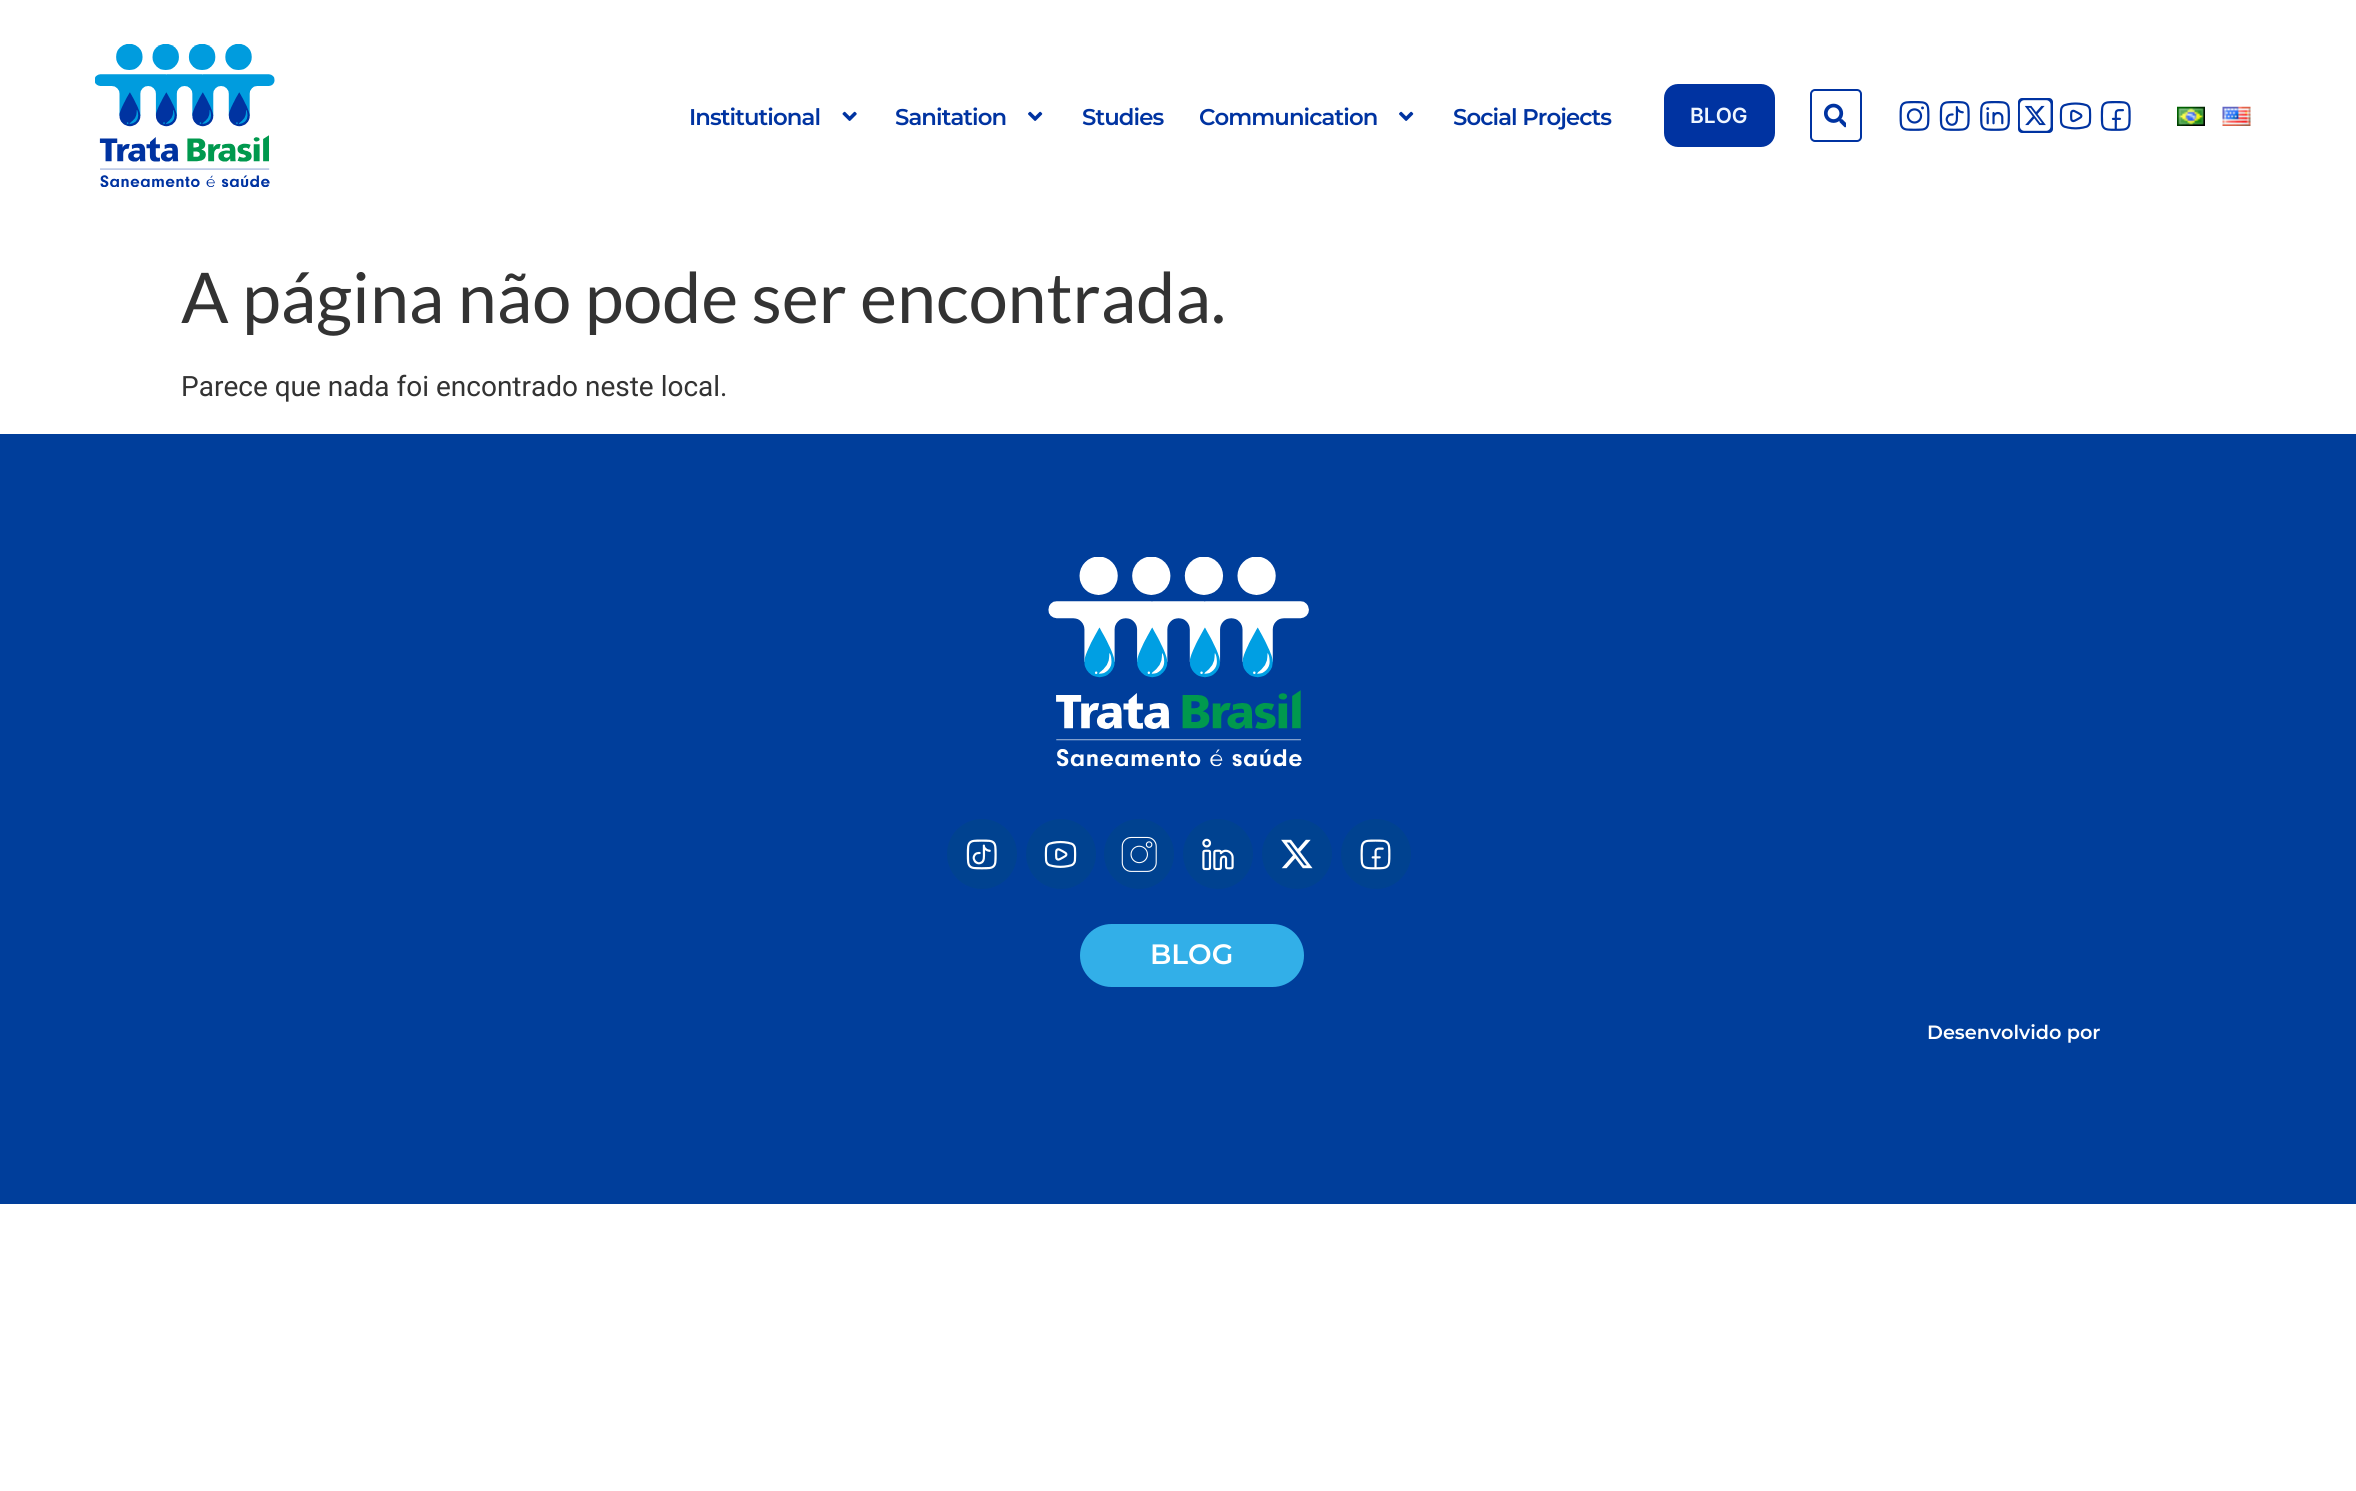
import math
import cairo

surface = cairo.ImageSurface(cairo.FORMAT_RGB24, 2356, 1491)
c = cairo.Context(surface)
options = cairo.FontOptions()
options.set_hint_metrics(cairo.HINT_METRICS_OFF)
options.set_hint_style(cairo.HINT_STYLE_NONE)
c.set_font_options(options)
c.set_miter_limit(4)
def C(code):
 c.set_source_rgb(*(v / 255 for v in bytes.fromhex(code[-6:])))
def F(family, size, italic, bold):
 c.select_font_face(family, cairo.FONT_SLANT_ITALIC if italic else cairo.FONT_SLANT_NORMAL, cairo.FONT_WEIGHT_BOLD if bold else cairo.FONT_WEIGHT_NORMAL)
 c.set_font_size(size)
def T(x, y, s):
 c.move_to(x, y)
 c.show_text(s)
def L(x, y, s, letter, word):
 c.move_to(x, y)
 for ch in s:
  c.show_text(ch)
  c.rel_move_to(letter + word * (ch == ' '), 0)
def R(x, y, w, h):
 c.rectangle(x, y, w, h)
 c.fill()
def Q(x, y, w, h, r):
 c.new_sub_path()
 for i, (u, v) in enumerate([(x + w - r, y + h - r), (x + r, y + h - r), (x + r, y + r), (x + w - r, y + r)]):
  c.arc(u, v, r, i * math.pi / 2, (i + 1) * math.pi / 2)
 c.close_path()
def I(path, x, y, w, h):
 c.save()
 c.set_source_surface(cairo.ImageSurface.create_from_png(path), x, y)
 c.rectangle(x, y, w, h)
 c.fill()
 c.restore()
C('ffffff')
c.paint()
I('1.png',95,44,180,143)
F('Montserrat SemiBold',22.75,0,0)
C('0033a1')
L(689,125,'Institutional',-.9,0)
I('2.png',842,111,15,10)
L(895,125,'Sanitation',-.9,0)
I('3.png',1028,111,15,10)
L(1082,125,'Studies',-.9,0)
L(1199,125,'Communication',-.9,0)
I('3.png',1399,111,15,10)
L(1453,125,'Social Projects',-.9,0)
Q(1664,84,111,63,14)
c.fill()
F('Inter SemiBold',21,0,0)
C('eff6ff')
T(1690,123,'BLOG')
Q(1811,90,50,51,4)
C('0033a1')
c.stroke()
I('4.png',1824,103,22,25)
I('5.png',1899,101,31,30)
I('6.png',1939,101,31,30)
I('7.png',1980,101,30,30)
Q(2018,98,35,35,4)
c.fill()
I('8.png',2019,100,32,31)
I('9.png',2059,102,33,28)
I('10.png',2100,101,31,30)
I('11.png',2177,106,28,20)
I('12.png',2222,106,29,20)
F('Lato',70,0,0)
C('333333')
T(181,323,'A página não pode ser encontrada.')
F('Roboto',28,0,0)
T(181,396,'Parece que nada foi encontrado neste local.')
C('003e9b')
R(0,434,2356,770)
I('13.png',1048,557,261,210)
C('004290')
c.arc(982,854,35,0,2 * math.pi)
c.fill()
I('14.png',966,839,31,31)
c.arc(1061,854,35,0,2 * math.pi)
c.fill()
I('15.png',1044,840,33,28)
c.arc(1139,854,35,0,2 * math.pi)
c.fill()
I('16.png',1121,836,36,36)
c.arc(1218,854,35,0,2 * math.pi)
c.fill()
I('17.png',1202,838,32,33)
c.arc(1297,854,35,0,2 * math.pi)
c.fill()
I('18.png',1281,839,32,30)
c.arc(1376,854,35,0,2 * math.pi)
c.fill()
I('19.png',1360,839,31,31)
C('32afe8')
Q(1080,924,224,63,31.5)
c.fill()
F('Montserrat SemiBold',28,0,0)
C('ffffff')
T(1150,964,'BLOG')
F('Montserrat SemiBold',19.25,0,0)
T(1927,1039,'Desenvolvido por')
surface.write_to_png('o.png')
